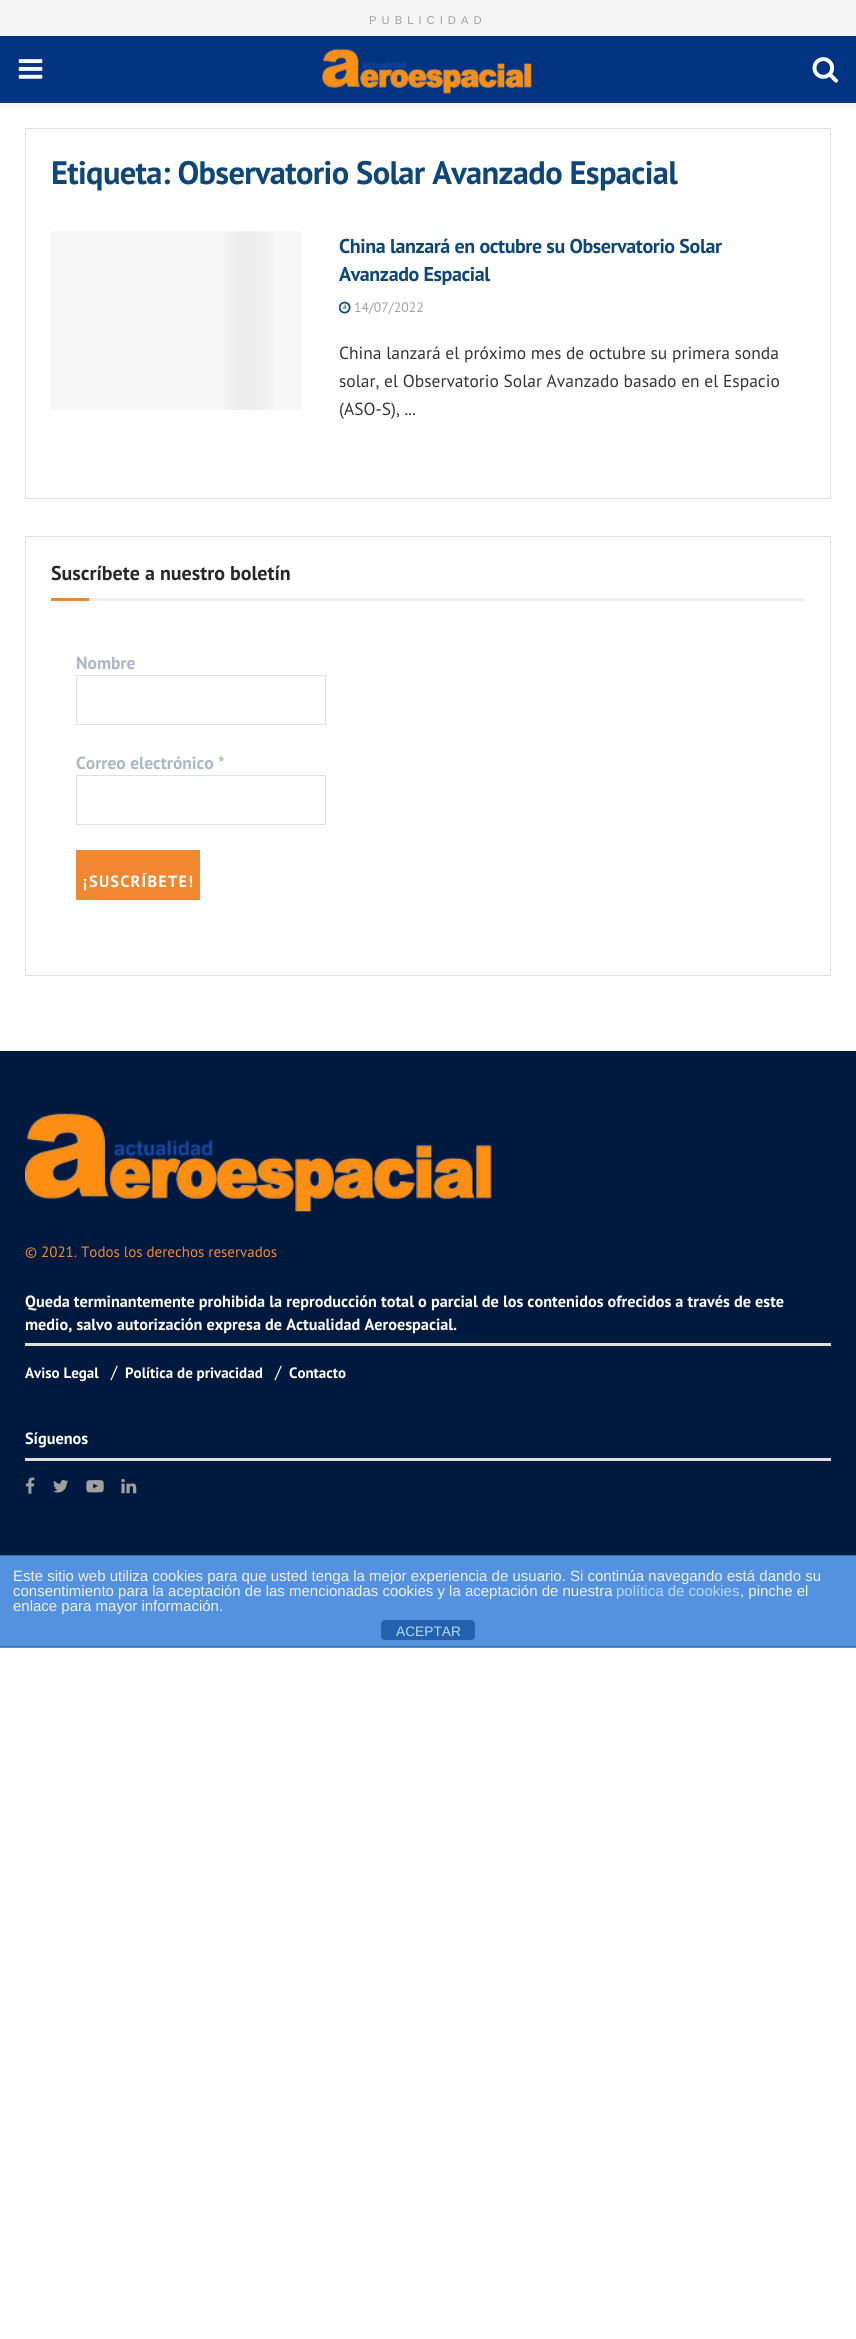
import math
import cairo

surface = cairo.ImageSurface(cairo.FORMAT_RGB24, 856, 2339)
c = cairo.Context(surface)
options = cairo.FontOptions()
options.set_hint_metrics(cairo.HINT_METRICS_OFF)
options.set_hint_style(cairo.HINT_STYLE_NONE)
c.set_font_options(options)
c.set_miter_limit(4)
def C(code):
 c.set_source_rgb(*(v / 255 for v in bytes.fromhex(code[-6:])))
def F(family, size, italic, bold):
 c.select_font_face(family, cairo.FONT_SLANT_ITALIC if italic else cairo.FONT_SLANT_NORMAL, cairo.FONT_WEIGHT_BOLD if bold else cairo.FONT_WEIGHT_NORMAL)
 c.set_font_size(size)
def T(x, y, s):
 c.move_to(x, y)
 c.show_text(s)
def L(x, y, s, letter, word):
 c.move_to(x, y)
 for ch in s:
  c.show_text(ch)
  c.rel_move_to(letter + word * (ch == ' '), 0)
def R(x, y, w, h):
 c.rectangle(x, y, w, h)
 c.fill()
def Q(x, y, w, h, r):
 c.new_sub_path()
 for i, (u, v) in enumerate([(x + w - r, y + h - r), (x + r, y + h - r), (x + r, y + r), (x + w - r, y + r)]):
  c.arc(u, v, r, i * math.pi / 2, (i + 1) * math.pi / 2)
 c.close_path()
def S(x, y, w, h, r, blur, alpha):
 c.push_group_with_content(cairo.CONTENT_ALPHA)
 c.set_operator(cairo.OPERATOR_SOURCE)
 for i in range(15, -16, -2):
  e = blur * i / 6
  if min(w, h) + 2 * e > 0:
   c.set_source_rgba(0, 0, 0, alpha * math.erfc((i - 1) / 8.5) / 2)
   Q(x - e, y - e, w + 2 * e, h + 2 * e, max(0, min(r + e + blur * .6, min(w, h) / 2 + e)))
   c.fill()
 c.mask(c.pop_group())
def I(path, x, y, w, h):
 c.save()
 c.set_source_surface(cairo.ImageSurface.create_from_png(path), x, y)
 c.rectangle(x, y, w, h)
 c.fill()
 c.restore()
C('ffffff')
c.paint()
C('000000')
S(0,39,856,66,0,4,.1)
C('f5f5f5')
R(0,0,856,36)
F('Liberation Sans',11.25,0,0)
C('a0a0a0')
L(369,24,'PUBLICIDAD',5,0)
C('003482')
R(0,36,856,67)
I('1.png',18,59,25,20)
I('2.png',322,48,210,46)
I('3.png',812,57,26,26)
c.rectangle(25.5,128.5,805,370)
C('e0e0e0')
c.set_line_width(1)
c.stroke()
F('PT Sans',32.5,0,1)
C('0d4677')
L(51,184,'Etiqueta: Observatorio Solar Avanzado Espacial',-.65,0)
C('f7f7f7')
R(51,231,250,179)
I('4.png',224,231,50,179)
F('PT Sans',20,0,1)
C('0d4677')
L(339,253,'China lanzará en octubre su Observatorio Solar',-.4,0)
L(339,281,'Avanzado Espacial',-.4,0)
I('5.png',339,301,12,13)
F('PT Sans',13.75,0,0)
C('a0a0a0')
T(354,312,'14/07/2022')
F('PT Sans',17.5,0,0)
C('353535')
T(339,359,'China lanzará el próximo mes de octubre su primera sonda')
T(339,387,'solar, el Observatorio Solar Avanzado basado en el Espacio')
T(339,415,'(ASO-S), ...')
c.rectangle(25.5,536.5,805,439)
C('e0e0e0')
c.stroke()
C('eeeeee')
R(89,598,716,3)
F('PT Sans',20,0,1)
C('282828')
T(51,580,'Suscríbete a nuestro boletín')
C('f38730')
R(51,598,38,3)
F('PT Sans',17.5,0,1)
C('abb8c3')
T(76,669,'Nombre')
c.rectangle(76.5,675.5,249,49)
C('e0e0e0')
c.stroke()
C('abb8c3')
T(76,769,'Correo electrónico *')
c.rectangle(76.5,775.5,249,49)
C('e0e0e0')
c.stroke()
C('f38730')
R(76,850,124,50)
F('PT Sans',16.25,0,1)
C('ffffff')
L(83,887,'¡SUSCRÍBETE!',1.25,0)
C('00193f')
R(0,1051,856,504)
I('6.png',25,1113,467,100)
F('PT Sans',15,0,0)
C('f48a34')
T(25,1257,'© 2021. Todos los derechos reservados')
C('e0e0e0')
R(25,1343,806,3)
F('PT Sans',16.25,0,1)
C('ffffff')
T(25,1307,'Queda terminantemente prohibida la reproducción total o parcial de los contenidos ofrecidos a través de este')
T(25,1330,'medio, salvo autorización expresa de Actualidad Aeroespacial.')
F('PT Sans',15,0,1)
T(25,1378,'Aviso Legal')
F('PT Sans',17.5,0,0)
T(111,1378,'/')
F('PT Sans',15,0,1)
T(125,1378,'Política de privacidad')
F('PT Sans',17.5,0,0)
T(275,1378,'/')
F('PT Sans',15,0,1)
T(289,1378,'Contacto')
C('e0e0e0')
R(25,1458,806,3)
F('PT Sans',16.25,0,1)
C('ffffff')
T(25,1444,'Síguenos')
I('7.png',25,1477,10,17)
I('8.png',53,1480,16,13)
I('9.png',86,1480,18,13)
I('10.png',121,1479,16,15)
C('5492e0')
R(0,1556,856,92)
C('3f6da7')
R(0,1555,856,1)
R(0,1646,856,1)
F('Liberation Sans',15,0,0)
C('eeeeee')
T(13,1581,'Este sitio web utiliza cookies para que usted tenga la mejor experiencia de usuario. Si continúa navegando está dando su')
T(13,1596,'consentimiento para la aceptación de las mencionadas cookies y la aceptación de nuestra')
C('b7d7ff')
T(616,1596,'política de cookies')
C('eeeeee')
T(740,1596,', pinche el')
T(13,1611,'enlace para mayor información.')
C('2462b0')
Q(381,1620,94,20,4)
c.fill()
F('Liberation Sans',13.75,0,0)
C('b7d7ff')
T(396,1636,'ACEPTAR')
surface.write_to_png('o.png')
